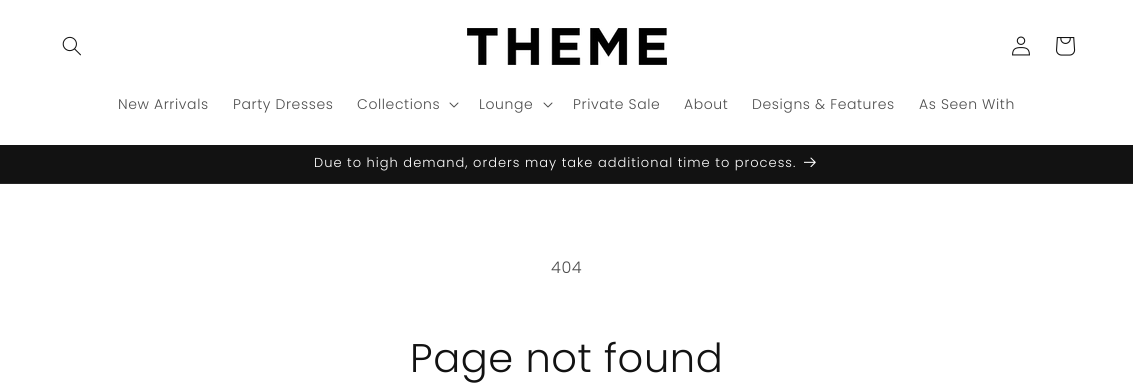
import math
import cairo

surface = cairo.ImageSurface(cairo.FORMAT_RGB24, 1133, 384)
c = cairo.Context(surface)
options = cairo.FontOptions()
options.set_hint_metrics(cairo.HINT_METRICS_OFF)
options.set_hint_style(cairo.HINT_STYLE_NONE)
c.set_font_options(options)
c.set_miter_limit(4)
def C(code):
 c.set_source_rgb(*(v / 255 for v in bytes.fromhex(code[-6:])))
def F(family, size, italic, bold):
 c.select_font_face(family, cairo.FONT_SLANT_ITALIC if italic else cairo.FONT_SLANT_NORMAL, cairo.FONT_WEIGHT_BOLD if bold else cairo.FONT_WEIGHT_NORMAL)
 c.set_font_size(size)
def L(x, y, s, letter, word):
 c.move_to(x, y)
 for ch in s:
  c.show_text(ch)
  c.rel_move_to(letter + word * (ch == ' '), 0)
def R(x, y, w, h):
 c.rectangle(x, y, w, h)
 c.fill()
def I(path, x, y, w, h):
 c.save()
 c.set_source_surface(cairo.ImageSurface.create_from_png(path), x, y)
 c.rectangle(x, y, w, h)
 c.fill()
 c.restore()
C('ffffff')
c.paint()
I('1.png',62,36,19,20)
I('2.png',467,28,200,37)
I('3.png',1012,36,18,20)
I('4.png',1056,37,20,19)
F('Poppins Light',14,0,0)
C('4d4d4d')
L(118,109,'New Arrivals',.6,0)
L(233,109,'Party Dresses',.6,0)
L(357,109,'Collections',.6,0)
I('5.png',449,102,10,6)
L(479,109,'Lounge',.6,0)
I('5.png',543,102,10,6)
L(573,109,'Private Sale',.6,0)
L(684,109,'About',.6,0)
L(752,109,'Designs & Features',.6,0)
L(919,109,'As Seen With',.6,0)
C('121212')
R(0,145,1133,38)
C('252525')
R(0,183,1133,1)
F('Poppins Light',13,0,0)
C('ffffff')
L(314,167,'Due to high demand, orders may take additional time to process.',1,0)
I('6.png',804,157,12,10)
F('Poppins Light',16,0,0)
C('4d4d4d')
L(551,273,'404',.6,0)
F('Poppins Light',40,0,0)
C('121212')
L(410,372,'Page not found',.6,0)
surface.write_to_png('o.png')
